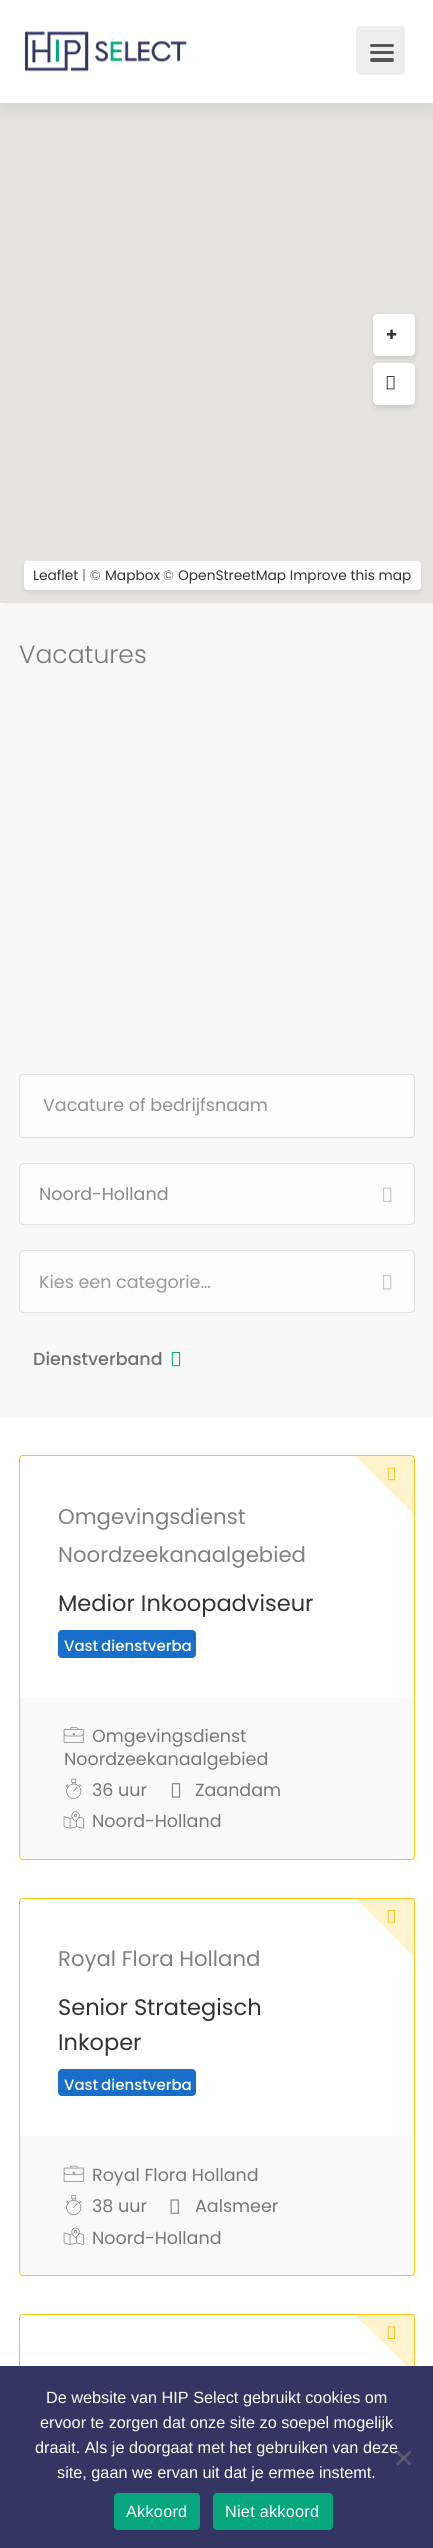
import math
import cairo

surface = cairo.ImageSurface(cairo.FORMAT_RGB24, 433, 2548)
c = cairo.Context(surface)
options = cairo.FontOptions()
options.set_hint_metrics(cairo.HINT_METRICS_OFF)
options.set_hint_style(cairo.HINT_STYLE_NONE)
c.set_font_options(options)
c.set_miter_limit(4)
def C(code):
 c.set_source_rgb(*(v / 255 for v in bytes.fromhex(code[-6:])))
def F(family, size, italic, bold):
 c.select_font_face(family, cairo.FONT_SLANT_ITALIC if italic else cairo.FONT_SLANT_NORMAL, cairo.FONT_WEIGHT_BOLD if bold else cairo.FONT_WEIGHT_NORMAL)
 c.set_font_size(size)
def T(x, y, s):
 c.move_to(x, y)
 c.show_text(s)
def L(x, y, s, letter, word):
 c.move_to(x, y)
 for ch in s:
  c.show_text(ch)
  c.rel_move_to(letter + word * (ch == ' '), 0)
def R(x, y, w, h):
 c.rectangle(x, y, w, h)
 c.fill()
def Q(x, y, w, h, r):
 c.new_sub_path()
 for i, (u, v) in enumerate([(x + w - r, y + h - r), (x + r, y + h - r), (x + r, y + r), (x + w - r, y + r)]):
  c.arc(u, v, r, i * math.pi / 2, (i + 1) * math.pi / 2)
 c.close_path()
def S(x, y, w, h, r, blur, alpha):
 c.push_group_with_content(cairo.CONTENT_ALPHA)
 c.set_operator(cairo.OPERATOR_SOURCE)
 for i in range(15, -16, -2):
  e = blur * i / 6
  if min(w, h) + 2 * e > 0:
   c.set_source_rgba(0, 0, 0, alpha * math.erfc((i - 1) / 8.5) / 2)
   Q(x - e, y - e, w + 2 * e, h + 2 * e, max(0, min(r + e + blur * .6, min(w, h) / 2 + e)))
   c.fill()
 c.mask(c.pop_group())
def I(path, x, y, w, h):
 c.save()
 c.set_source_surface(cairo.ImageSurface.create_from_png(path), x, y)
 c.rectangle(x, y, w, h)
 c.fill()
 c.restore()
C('ffffff')
c.paint()
C('e5e3df')
R(0,103,433,500)
C('000000')
S(0,0,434,103,0,11,.12)
C('ffffff')
R(0,0,433,103)
I('1.png',25,31,162,41)
C('eeeeee')
Q(356,26,49,49,4)
c.fill()
C('555555')
Q(370,58,24,4,2)
c.fill()
Q(370,44,24,3,1.5)
c.fill()
Q(370,51,24,3,1.5)
c.fill()
C('000000')
S(373,316,42,43,5,2.5,.1)
C('ffffff')
Q(373,314,42,42,5)
c.fill()
F('Noto Sans Black',19,0,0)
C('333333')
T(386,341,'+')
C('000000')
S(373,365,42,43,5,2.5,.1)
C('ffffff')
Q(373,363,42,42,5)
c.fill()
I('2.png',386,376,9,14)
C('000000')
S(24,564,397,29,4,2.5,.07)
C('ffffff')
Q(24,561,397,29,4)
c.fill()
F('Poppins',13.75,0,0)
C('333333')
T(33,580,'Leaflet')
C('777777')
T(82,580,'| ©')
C('333333')
T(105,580,'Mapbox')
C('777777')
T(163,580,'©')
C('333333')
T(178,580,'OpenStreetMap Improve this map')
C('f8f8f8')
Q(0,603,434,815,4)
c.fill()
F('Poppins Light',25,0,0)
C('777777')
T(19,663,'Vacatures')
C('fcfcfc')
Q(19.5,1074.5,395,63,3.5)
c.fill_preserve()
C('e0e0e0')
c.set_line_width(1)
c.stroke()
F('Poppins',17.5,0,0)
C('909090')
T(43,1111,'Vacature of bedrijfsnaam')
C('fcfcfc')
Q(19.5,1163.5,395,61,4.5)
c.fill_preserve()
C('e0e0e0')
c.stroke()
C('888888')
T(39,1200,'Noord-Holland')
I('3.png',383,1187,9,15)
C('fcfcfc')
Q(19.5,1250.5,395,62,4.5)
c.fill_preserve()
C('e0e0e0')
c.stroke()
C('999999')
T(39,1288,'Kies een categorie…')
I('4.png',383,1275,9,15)
F('Poppins Medium',17.5,0,0)
C('707070')
T(33,1365,'Dienstverband')
I('5.png',171,1351,10,16)
Q(19.5,1455.5,395,404,3.5)
C('fac710')
c.stroke()
c.set_source_rgba(0.98,0.78,0.063,0.21)
c.new_path()
c.move_to(414,1515)
c.line_to(414,1458)
c.curve_to(414,1457,413,1456,412,1456)
c.line_to(355,1456)
c.close_path()
c.fill()
I('6.png',387,1467,8,14)
F('Poppins',21.25,0,0)
C('808080')
T(58,1524,'Omgevingsdienst')
T(58,1562,'Noordzeekanaalgebied')
F('Poppins',22.5,0,0)
C('333333')
T(58,1611,'Medior Inkoopadviseur')
C('186fc9')
Q(58,1630,138,28,4)
c.fill()
F('Poppins Medium',15,0,0)
C('ffffff')
L(64,1651,'Vast dienstverba',0,-1)
C('f9f9f9')
c.new_path()
c.move_to(20,1698)
c.line_to(414,1698)
c.line_to(414,1854)
c.curve_to(414,1857,412,1859,409,1859)
c.line_to(25,1859)
c.curve_to(22,1859,20,1857,20,1854)
c.close_path()
c.fill()
I('7.png',63,1727,21,16)
F('Poppins',17.5,0,0)
C('777777')
T(92,1742,'Omgevingsdienst')
T(64,1765,'Noordzeekanaalgebied')
I('8.png',66,1778,16,21)
T(92,1796,'36 uur')
I('9.png',171,1783,10,15)
T(195,1796,'Zaandam')
I('10.png',63,1811,21,18)
T(92,1827,'Noord-Holland')
Q(19.5,1898.5,395,377,3.5)
C('fac710')
c.stroke()
c.set_source_rgba(0.98,0.78,0.063,0.21)
c.new_path()
c.move_to(414,1957)
c.line_to(414,1902)
c.curve_to(414,1900,413,1899,412,1899)
c.line_to(356,1899)
c.close_path()
c.fill()
I('11.png',387,1910,8,13)
F('Poppins',21.25,0,0)
C('808080')
T(58,1966,'Royal Flora Holland')
F('Poppins',22.5,0,0)
C('333333')
T(58,2015,'Senior Strategisch')
T(58,2050,'Inkoper')
C('186fc9')
Q(58,2069,138,27,4)
c.fill()
F('Poppins Medium',15,0,0)
C('ffffff')
L(64,2090,'Vast dienstverba',0,-1)
C('f9f9f9')
c.new_path()
c.move_to(20,2136)
c.line_to(414,2136)
c.line_to(414,2270)
c.curve_to(414,2273,412,2275,409,2275)
c.line_to(25,2275)
c.curve_to(22,2275,20,2273,20,2270)
c.close_path()
c.fill()
I('12.png',63,2165,21,17)
F('Poppins',17.5,0,0)
C('777777')
T(92,2181,'Royal Flora Holland')
I('13.png',66,2195,16,20)
T(92,2212,'38 uur')
I('14.png',170,2199,9,15)
T(195,2212,'Aalsmeer')
I('15.png',63,2227,21,18)
T(92,2244,'Noord-Holland')
Q(19.5,2314.5,395,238,3.5)
C('fac710')
c.stroke()
c.set_source_rgba(0.98,0.78,0.063,0.21)
c.new_path()
c.move_to(414,2373)
c.line_to(414,2318)
c.curve_to(414,2316,413,2315,412,2315)
c.line_to(355,2315)
c.close_path()
c.fill()
I('16.png',387,2326,8,13)
C('333662')
R(0,2366,433,182)
F('Liberation Sans',16.25,0,0)
C('ffffff')
T(46,2403,'De website van HIP Select gebruikt cookies om')
T(40,2428,'ervoor te zorgen dat onze site zo soepel mogelijk')
T(35,2453,'draait. Als je doorgaat met het gebruiken van deze')
T(57,2478,'site, gaan we ervan uit dat je ermee instemt.')
C('5a5b71')
c.new_path()
c.move_to(409.5,2450.5)
c.line_to(411.5,2452.5)
c.line_to(398,2465.5)
c.line_to(396,2464)
c.close_path()
c.fill()
c.set_source_rgba(0.502,0.502,0.502,0.5)
c.new_path()
c.move_to(396,2452.5)
c.line_to(398,2450.5)
c.line_to(411.5,2464)
c.line_to(409.5,2465.5)
c.close_path()
c.fill()
C('06a77d')
Q(114,2493,86,37,4)
c.fill()
C('ffffff')
L(126,2517,'Akkoord',.25,0)
C('06a77d')
Q(213,2493,120,37,4)
c.fill()
C('ffffff')
L(225,2517,'Niet akkoord',.25,0)
surface.write_to_png('o.png')
